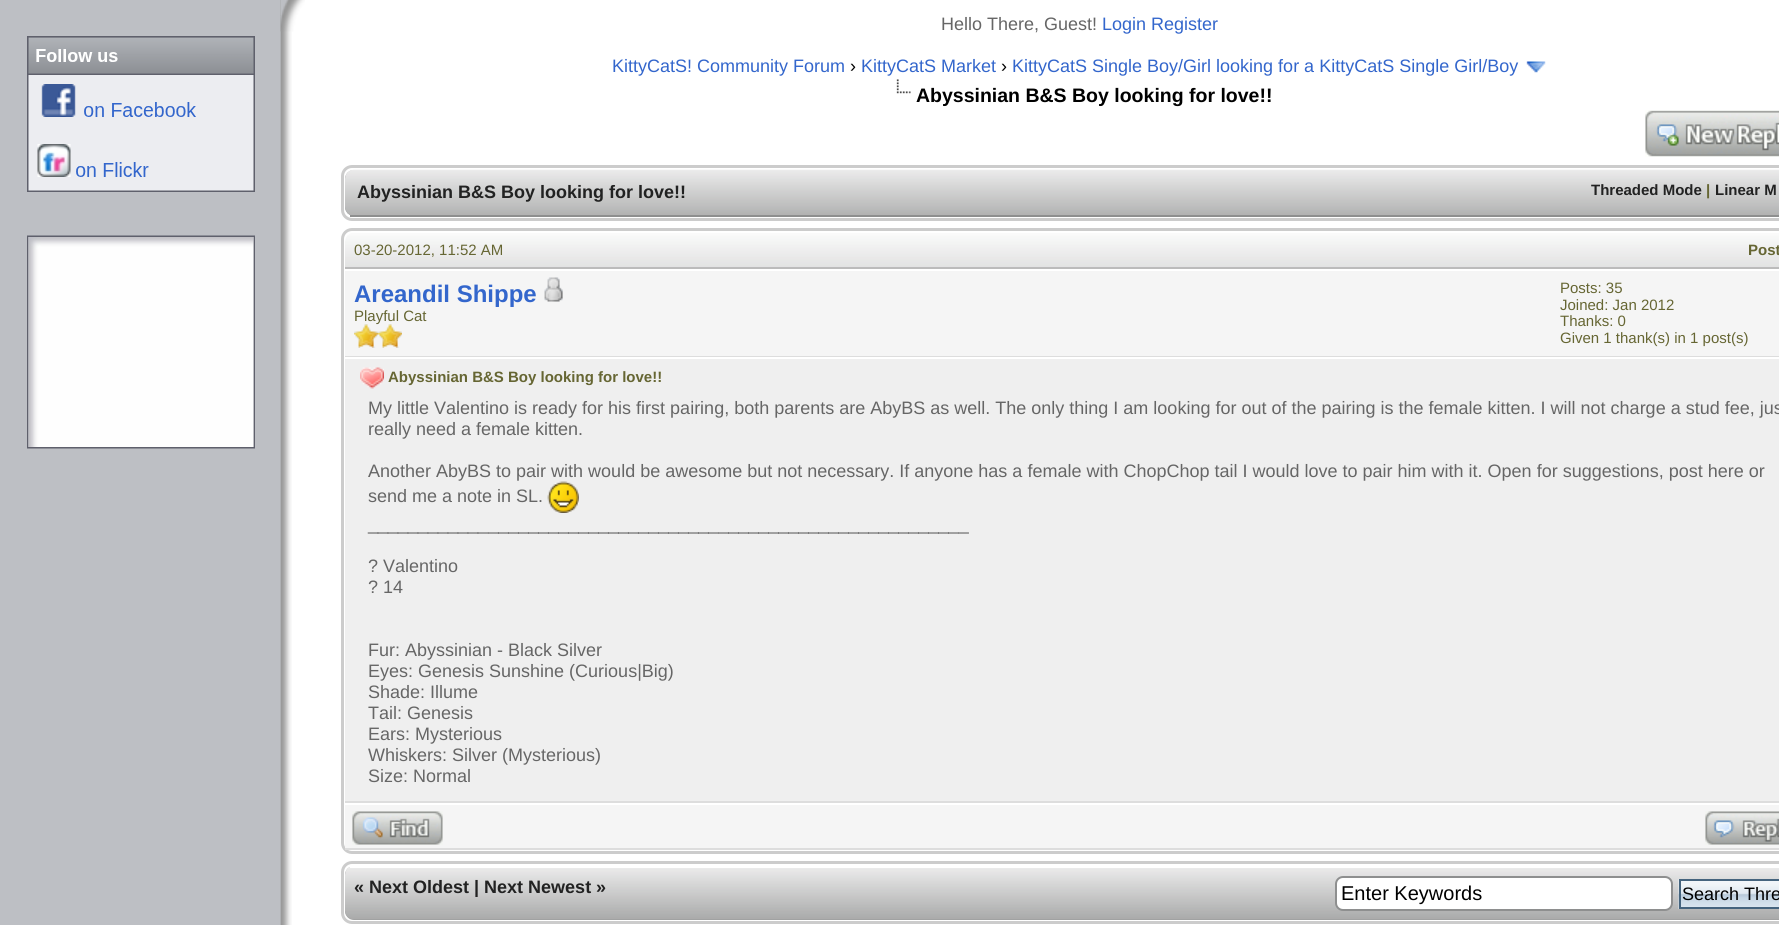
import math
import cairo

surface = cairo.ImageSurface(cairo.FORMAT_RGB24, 1779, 925)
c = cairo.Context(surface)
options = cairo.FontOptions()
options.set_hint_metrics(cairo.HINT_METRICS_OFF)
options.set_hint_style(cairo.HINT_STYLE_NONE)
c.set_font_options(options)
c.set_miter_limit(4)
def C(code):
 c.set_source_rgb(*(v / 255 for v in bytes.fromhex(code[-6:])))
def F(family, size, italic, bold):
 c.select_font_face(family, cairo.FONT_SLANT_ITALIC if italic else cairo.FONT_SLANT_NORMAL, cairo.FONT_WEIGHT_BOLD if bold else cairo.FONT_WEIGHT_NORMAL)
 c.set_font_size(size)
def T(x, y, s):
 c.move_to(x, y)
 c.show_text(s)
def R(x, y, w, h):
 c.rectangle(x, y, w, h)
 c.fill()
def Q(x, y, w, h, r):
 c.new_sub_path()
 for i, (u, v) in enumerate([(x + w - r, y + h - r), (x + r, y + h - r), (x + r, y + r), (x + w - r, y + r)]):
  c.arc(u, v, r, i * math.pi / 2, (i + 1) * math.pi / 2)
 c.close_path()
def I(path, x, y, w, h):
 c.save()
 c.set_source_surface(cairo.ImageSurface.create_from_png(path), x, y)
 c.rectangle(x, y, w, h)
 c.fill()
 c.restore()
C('ffffff')
c.paint()
C('bdbfc4')
R(0,0,281,925)
I('2.png',280,0,12,925)
I('3.png',280,0,25,32)
I('1.png',27,16,254,909)
F('Liberation Sans',18,0,0)
C('666666')
T(941,30,'Hello There, Guest!')
C('3366cc')
T(1102,30,'Login Register')
T(612,72,'KittyCatS! Community Forum')
C('000000')
T(850,72,'›')
C('3366cc')
T(861,72,'KittyCatS Market')
C('000000')
T(1001,72,'›')
C('3366cc')
T(1012,72,'KittyCatS Single Boy/Girl looking for a KittyCatS Single Girl/Boy')
I('4.png',1526,61,20,12)
I('5.png',896,79,15,15)
F('Liberation Sans',19.5,0,1)
C('000000')
T(916,102,'Abyssinian B&S Boy looking for love!!')
I('6.png',1645,110,134,47)
Q(342.5,166.5,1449,53,9.5)
C('cccccc')
c.set_line_width(3)
c.stroke()
C('a1a2a2')
Q(345,170,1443,46,9)
c.fill()
I('7.png',345,169,1434,46)
C('8e8f8f')
R(350,215,1429,2)
F('Liberation Sans',18,0,1)
C('222222')
T(357,198,'Abyssinian B&S Boy looking for love!!')
F('Liberation Sans',15,0,1)
T(1591,195,'Threaded Mode')
C('666633')
T(1706,195,'|')
C('222222')
T(1715,195,'Linear M')
Q(342.5,229.5,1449,623,9.5)
C('cccccc')
c.stroke()
I('8.png',345,233,1434,34)
C('bbbbbb')
R(345,267,1434,2)
F('Liberation Sans',15,0,0)
C('666633')
T(354,255,'03-20-2012, 11:52 AM')
F('Liberation Sans',15,0,1)
T(1748,255,'Post')
C('f5f5f5')
R(345,271,1434,85)
C('dddddd')
R(345,356,1434,1)
F('Liberation Sans',24,0,1)
C('3366cc')
T(354,302,'Areandil Shippe')
I('9.png',544,277,19,25)
F('Liberation Sans',15,0,0)
C('666633')
T(354,321,'Playful Cat')
I('10.png',354,324,24,24)
I('11.png',378,324,24,24)
T(1560,293,'Posts: 35')
T(1560,310,'Joined: Jan 2012')
T(1560,326,'Thanks: 0')
T(1560,343,'Given 1 thank(s) in 1 post(s)')
C('efefef')
R(345,359,1434,442)
C('dddddd')
R(345,801,1434,2)
I('12.png',360,367,24,22)
F('Liberation Sans',15,0,1)
C('666633')
T(388,382,'Abyssinian B&S Boy looking for love!!')
F('Liberation Sans',18,0,0)
C('666666')
T(368,414,'My little Valentino is ready for his first pairing, both parents are AbyBS as well. The only thing I am looking for out of the pairing is the female kitten. I will not charge a stud fee, jus')
T(368,435,'really need a female kitten.')
T(368,477,'Another AbyBS to pair with would be awesome but not necessary. If anyone has a female with ChopChop tail I would love to pair him with it. Open for suggestions, post here or')
T(368,502,'send me a note in SL.')
I('13.png',547,481,32,32)
T(368,530,'____________________________________________________________')
T(368,572,'? Valentino')
T(368,593,'? 14')
T(368,656,'Fur: Abyssinian - Black Silver')
T(368,677,'Eyes: Genesis Sunshine (Curious|Big)')
T(368,698,'Shade: Illume')
T(368,719,'Tail: Genesis')
T(368,740,'Ears: Mysterious')
T(368,761,'Whiskers: Silver (Mysterious)')
T(368,782,'Size: Normal')
C('f5f5f5')
R(345,805,1434,43)
C('dddddd')
R(345,848,1434,2)
I('14.png',352,811,91,34)
I('15.png',1705,811,74,34)
Q(342.5,862.5,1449,60,9.5)
C('cccccc')
c.stroke()
C('a1a2a2')
Q(345,866,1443,54,9)
c.fill()
I('16.png',345,867,1434,52)
C('ffffff')
R(350,866,1429,2)
F('Liberation Sans',18,0,1)
C('222222')
T(354,893,'« Next Oldest | Next Newest »')
C('ffffff')
Q(1336,877,336,33,7)
c.fill_preserve()
C('8e8f8f')
c.set_line_width(2)
c.stroke()
F('Liberation Sans',20,0,0)
C('000000')
T(1341,900,'Enter Keywords')
I('17.png',1678,879,101,30)
c.rectangle(1680,880,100,28)
C('45647e')
c.stroke()
F('Liberation Sans',18,0,0)
C('000000')
T(1682,900,'Search Thre')
surface.write_to_png('o.png')
